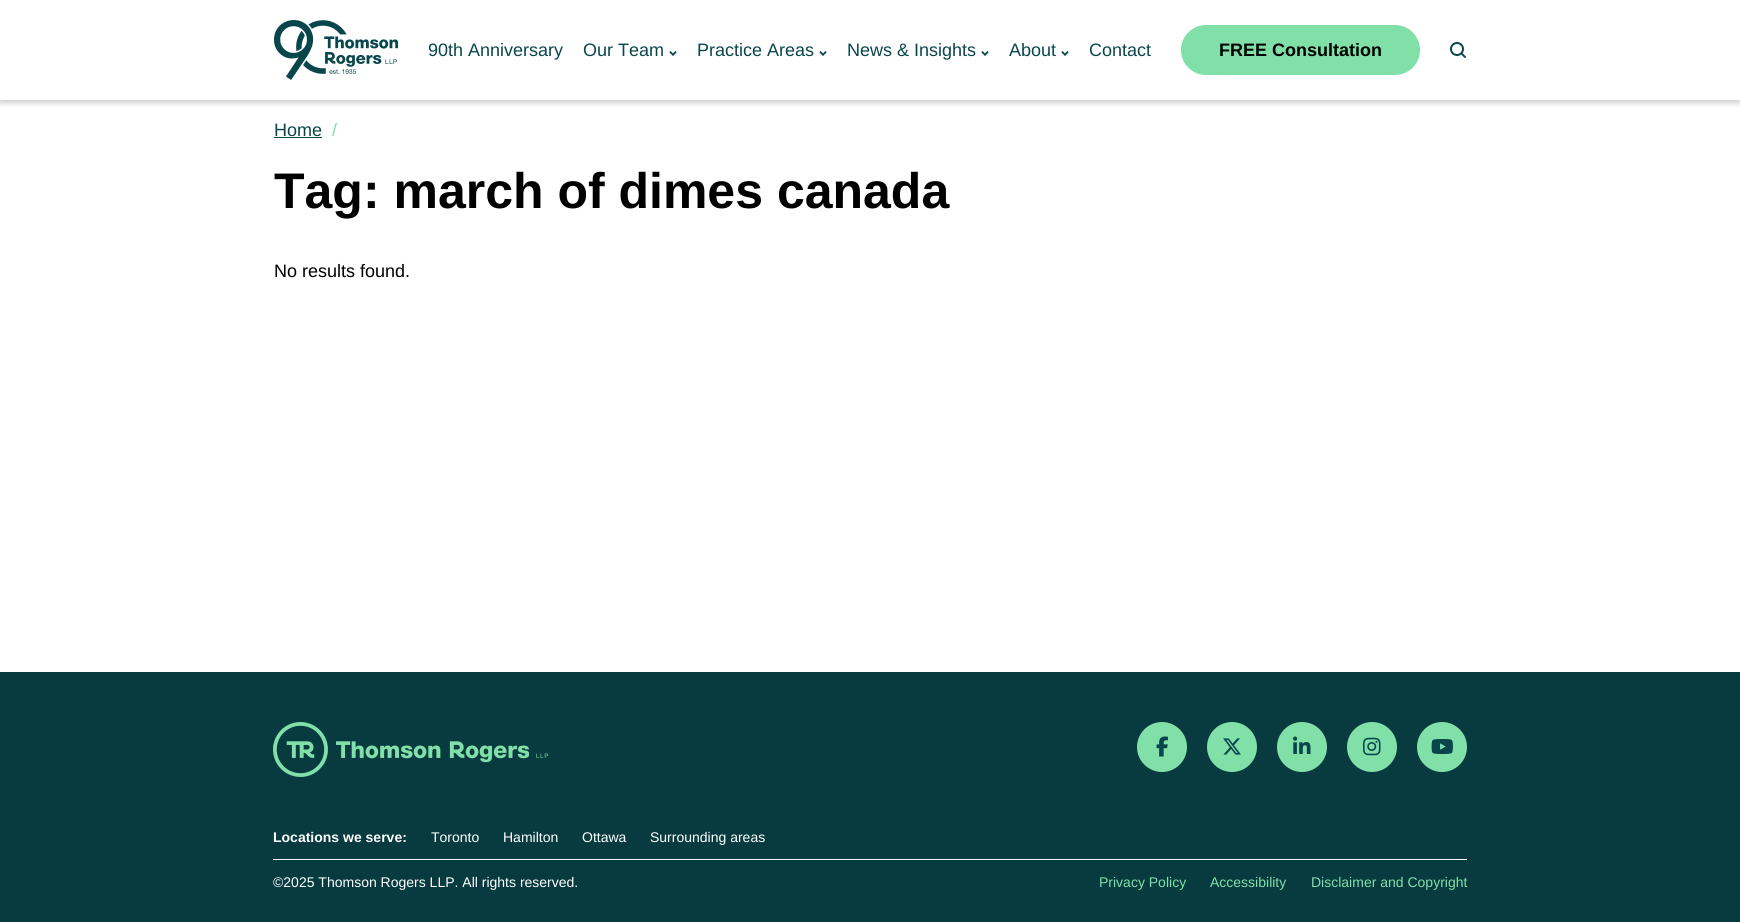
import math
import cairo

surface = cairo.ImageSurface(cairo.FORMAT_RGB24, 1740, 922)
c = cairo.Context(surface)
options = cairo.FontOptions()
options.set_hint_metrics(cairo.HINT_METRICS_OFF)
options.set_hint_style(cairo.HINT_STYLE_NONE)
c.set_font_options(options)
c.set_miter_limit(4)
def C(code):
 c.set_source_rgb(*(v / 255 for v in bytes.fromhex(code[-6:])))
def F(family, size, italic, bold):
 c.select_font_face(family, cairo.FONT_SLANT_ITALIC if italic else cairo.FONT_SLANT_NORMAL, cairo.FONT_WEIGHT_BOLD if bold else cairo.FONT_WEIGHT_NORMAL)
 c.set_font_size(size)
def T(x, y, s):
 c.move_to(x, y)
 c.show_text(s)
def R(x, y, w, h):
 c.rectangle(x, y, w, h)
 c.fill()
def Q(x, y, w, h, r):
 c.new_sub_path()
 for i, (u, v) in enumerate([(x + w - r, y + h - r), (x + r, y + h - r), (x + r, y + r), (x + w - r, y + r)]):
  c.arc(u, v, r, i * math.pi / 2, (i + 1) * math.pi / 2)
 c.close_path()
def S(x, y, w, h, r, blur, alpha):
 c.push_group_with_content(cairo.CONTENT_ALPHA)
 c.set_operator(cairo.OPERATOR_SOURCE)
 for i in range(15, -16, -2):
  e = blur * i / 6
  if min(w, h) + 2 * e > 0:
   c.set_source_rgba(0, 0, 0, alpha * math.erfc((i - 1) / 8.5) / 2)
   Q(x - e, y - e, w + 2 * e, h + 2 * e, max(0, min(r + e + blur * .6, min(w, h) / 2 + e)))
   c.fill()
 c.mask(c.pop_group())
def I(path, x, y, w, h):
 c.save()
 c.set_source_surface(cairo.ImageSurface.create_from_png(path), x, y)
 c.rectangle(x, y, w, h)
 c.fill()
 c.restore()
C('ffffff')
c.paint()
c.save()
c.rectangle(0,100,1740,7)
c.clip()
C('000000')
S(0,3,1740,100,0,3,.2)
c.restore()
I('1.png',274,20,124,60)
F('Liberation Sans',18,0,0)
C('08464c')
T(428,56,'90th Anniversary')
T(583,56,'Our Team')
I('2.png',669,51,8,5)
T(697,56,'Practice Areas')
I('2.png',819,51,8,5)
T(847,56,'News & Insights')
I('2.png',981,51,8,5)
T(1009,56,'About')
I('2.png',1061,51,8,5)
T(1089,56,'Contact')
C('80e0a7')
Q(1181,25,239,50,25)
c.fill()
F('Liberation Sans',18,0,1)
C('000000')
T(1219,56,'FREE Consultation')
I('3.png',1450,42,16,16)
F('Liberation Sans',18,0,0)
C('08464c')
T(274,136,'Home')
R(274,137,48,1)
C('80e0a7')
T(332,136,'/')
F('Liberation Sans',50,0,1)
C('000000')
T(274,208,'Tag: march of dimes canada')
F('Liberation Sans',18,0,0)
T(274,277,'No results found.')
C('083b40')
R(0,672,1740,250)
I('4.png',273,722,275,55)
C('80e0a7')
c.arc(1162,747,25,0,2 * math.pi)
c.fill()
I('5.png',1156,736,12,21)
c.arc(1232,747,25,0,2 * math.pi)
c.fill()
I('6.png',1223,738,18,17)
c.arc(1302,747,25,0,2 * math.pi)
c.fill()
I('7.png',1293,736,18,18)
c.arc(1372,747,25,0,2 * math.pi)
c.fill()
I('8.png',1363,737,18,19)
c.arc(1442,747,25,0,2 * math.pi)
c.fill()
I('9.png',1431,739,22,15)
C('ffffff')
R(273,859,1194,1)
F('Liberation Sans',14,0,1)
T(273,842,'Locations we serve:')
F('Liberation Sans',14,0,0)
T(431,842,'Toronto')
T(503,842,'Hamilton')
T(582,842,'Ottawa')
T(650,842,'Surrounding areas')
T(273,887,'©2025 Thomson Rogers LLP. All rights reserved.')
C('80e0a7')
T(1099,887,'Privacy Policy')
T(1210,887,'Accessibility')
T(1311,887,'Disclaimer and Copyright')
surface.write_to_png('o.png')
